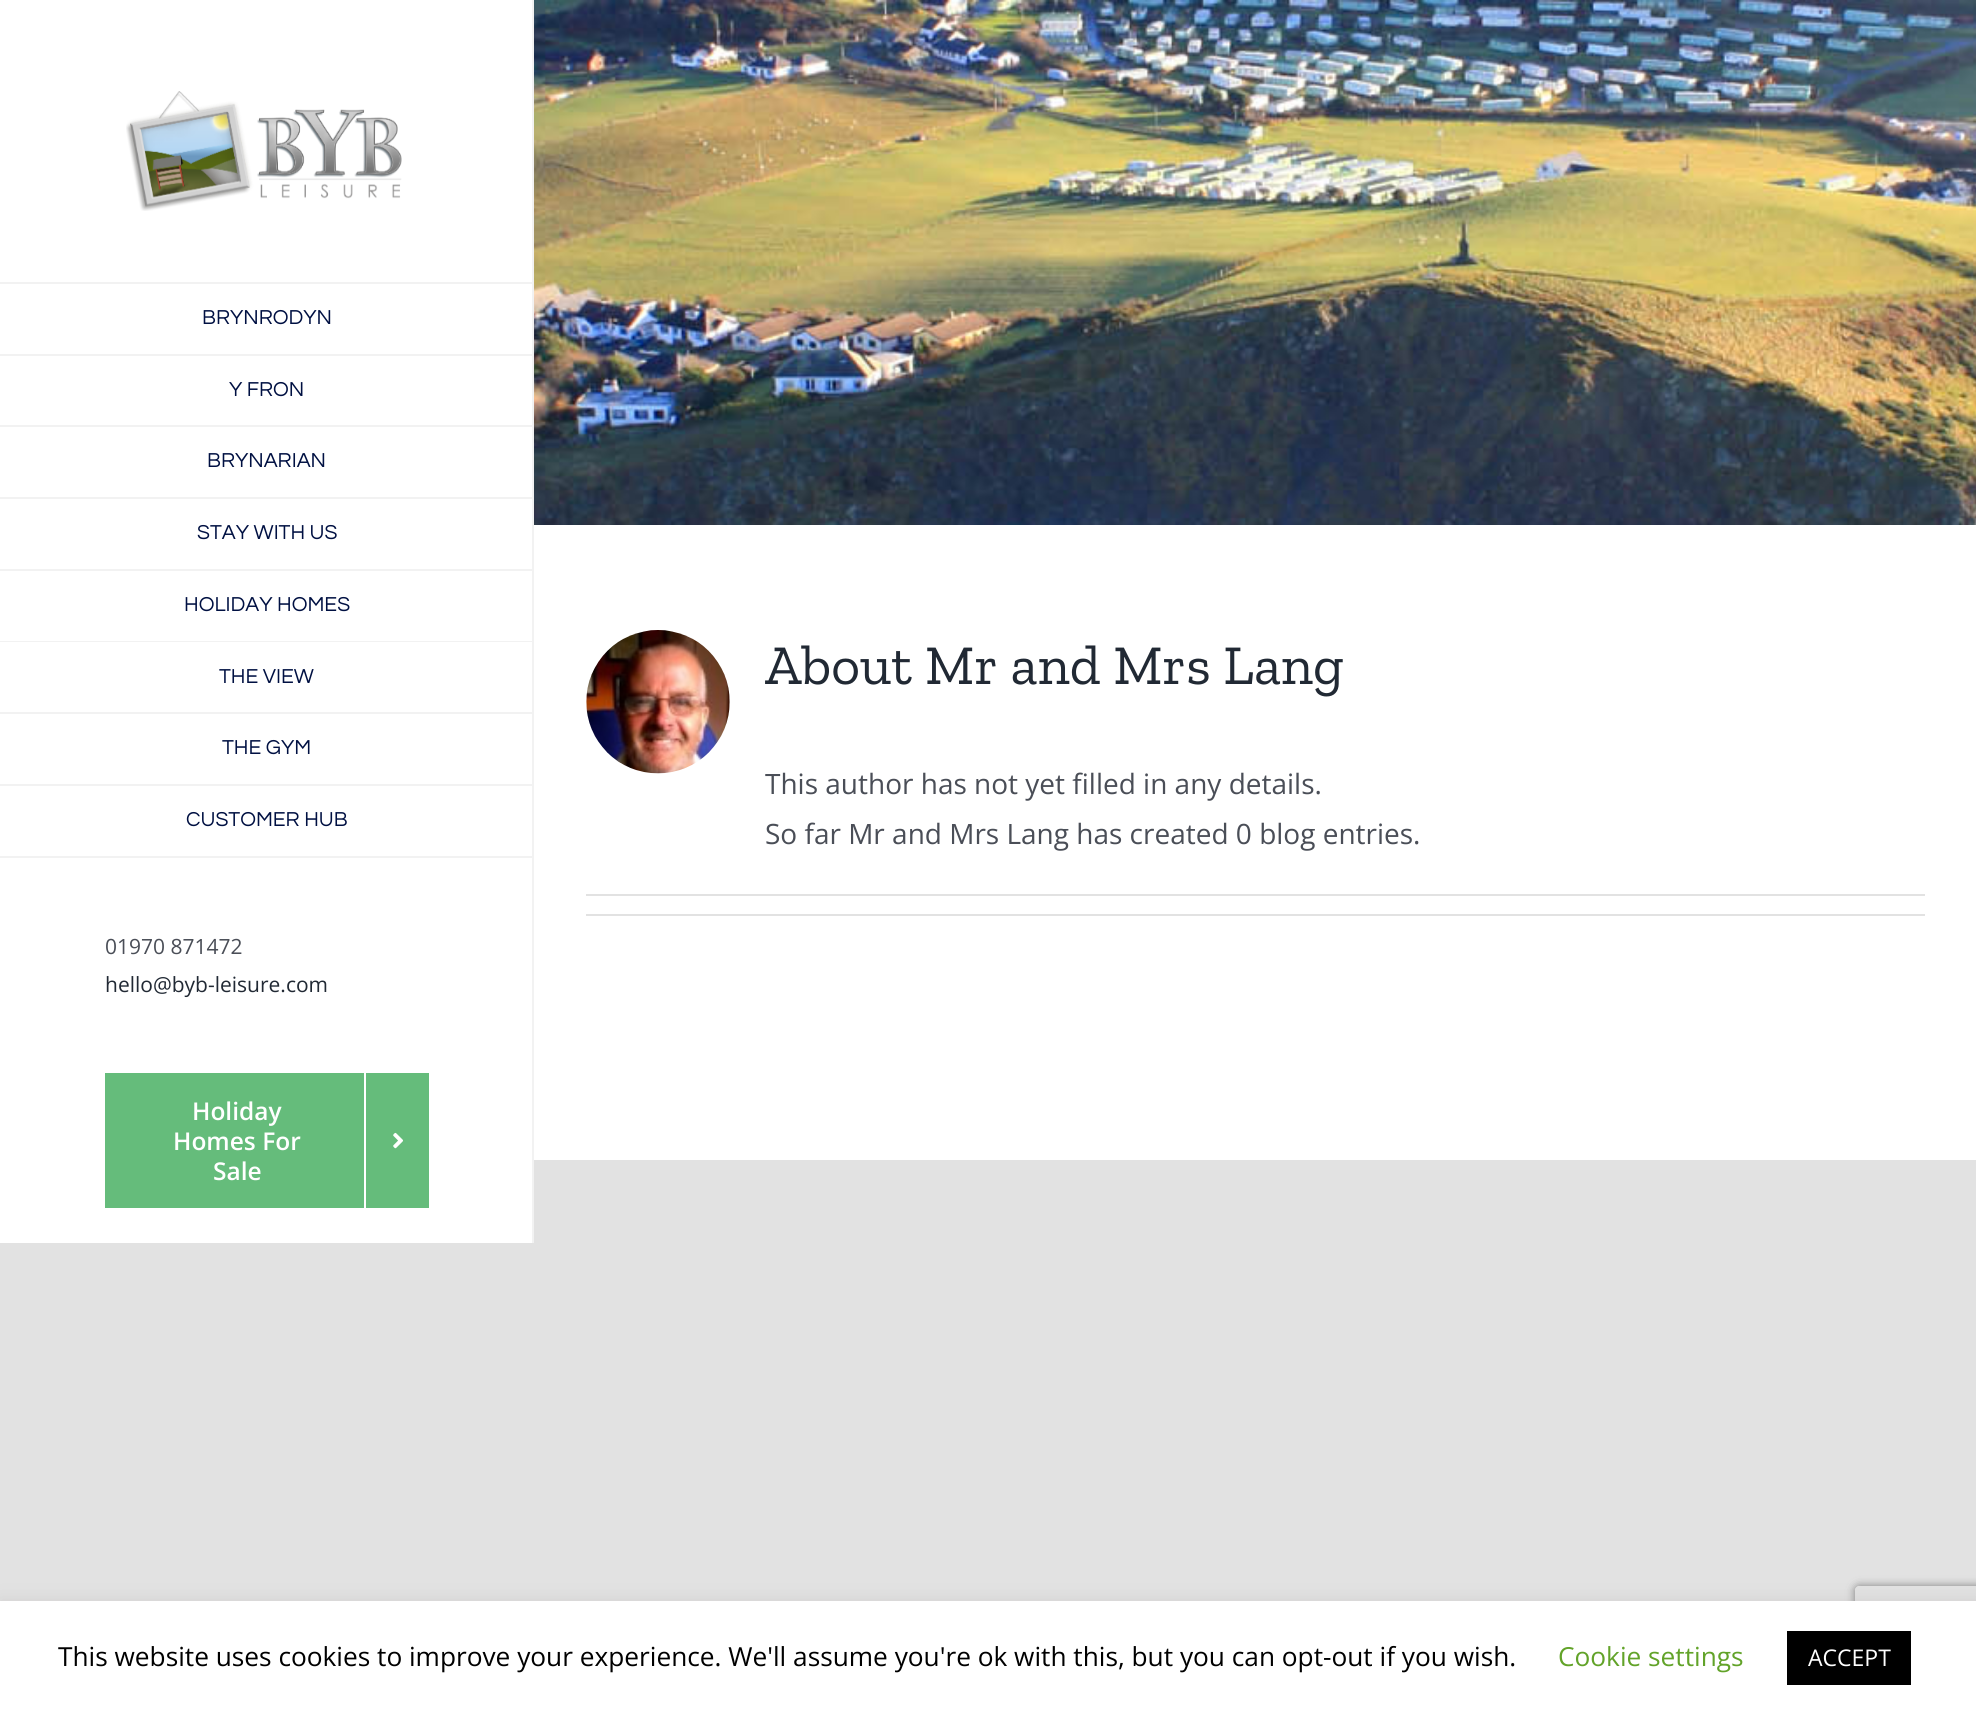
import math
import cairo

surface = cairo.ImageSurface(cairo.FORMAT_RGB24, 1976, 1715)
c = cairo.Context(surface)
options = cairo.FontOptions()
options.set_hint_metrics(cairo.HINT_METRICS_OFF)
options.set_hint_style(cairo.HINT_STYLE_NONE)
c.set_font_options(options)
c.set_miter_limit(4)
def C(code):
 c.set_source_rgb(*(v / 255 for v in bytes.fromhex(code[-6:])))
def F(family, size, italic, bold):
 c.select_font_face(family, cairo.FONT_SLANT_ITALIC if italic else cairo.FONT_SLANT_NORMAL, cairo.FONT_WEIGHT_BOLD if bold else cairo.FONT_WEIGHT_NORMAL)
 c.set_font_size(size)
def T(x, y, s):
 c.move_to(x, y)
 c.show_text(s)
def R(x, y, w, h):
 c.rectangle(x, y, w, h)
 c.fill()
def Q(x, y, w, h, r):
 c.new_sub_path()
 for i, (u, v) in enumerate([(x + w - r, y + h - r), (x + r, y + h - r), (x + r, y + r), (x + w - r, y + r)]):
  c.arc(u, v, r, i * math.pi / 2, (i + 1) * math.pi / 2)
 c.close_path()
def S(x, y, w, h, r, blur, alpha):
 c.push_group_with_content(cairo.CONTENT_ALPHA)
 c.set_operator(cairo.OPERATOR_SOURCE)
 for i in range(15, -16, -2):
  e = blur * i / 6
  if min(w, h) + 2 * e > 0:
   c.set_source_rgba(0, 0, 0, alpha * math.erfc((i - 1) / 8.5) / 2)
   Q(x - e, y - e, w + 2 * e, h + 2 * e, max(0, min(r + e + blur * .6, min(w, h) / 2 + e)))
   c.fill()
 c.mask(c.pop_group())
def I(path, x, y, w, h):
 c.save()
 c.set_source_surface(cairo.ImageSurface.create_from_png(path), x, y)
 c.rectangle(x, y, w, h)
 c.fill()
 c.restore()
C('e2e2e2')
c.paint()
C('ffffff')
R(534,525,1442,635)
R(0,0,532,1243)
C('f2f2f2')
R(532,0,2,1243)
I('1.png',126,91,276,120)
R(0,282,534,2)
R(0,354,534,2)
F('Questrial',21,0,0)
C('001042')
T(202,324,'BRYNRODYN')
C('f2f2f2')
R(0,425,534,2)
C('001042')
T(229,396,'Y FRON')
C('f2f2f2')
R(0,497,534,2)
C('001042')
T(207,467,'BRYNARIAN')
C('f2f2f2')
R(0,569,534,2)
C('001042')
T(197,539,'STAY WITH US')
C('f2f2f2')
R(0,641,534,1)
C('001042')
T(184,611,'HOLIDAY HOMES')
C('f2f2f2')
R(0,712,534,2)
C('001042')
T(219,683,'THE VIEW')
C('f2f2f2')
R(0,784,534,2)
C('001042')
T(222,754,'THE GYM')
C('f2f2f2')
R(0,856,534,2)
C('001042')
T(186,826,'CUSTOMER HUB')
F('Open Sans',21,0,0)
C('4a4e57')
T(105,954,'01970 871472')
C('212934')
T(105,992,'hello@byb-leisure.com')
C('65bc7b')
R(105,1073,324,135)
F('Open Sans SemiBold',24.5,0,0)
C('ffffff')
T(192,1120,'Holiday')
T(173,1150,'Homes For')
T(213,1180,'Sale')
R(364,1073,2,135)
I('2.png',393,1132,10,17)
I('3.png',534,0,1442,525)
I('4.png',586,630,144,144)
c.save()
c.rectangle(765,630,1160,229)
c.clip()
F('Zilla Slab',56,0,0)
C('212934')
T(765,684,'About')
c.restore()
F('Zilla Slab',56,0,0)
C('212934')
T(925,684,'Mr and Mrs Lang')
F('Open Sans',28,0,0)
C('4a4e57')
T(765,794,'This author has not yet filled in any details.')
T(765,844,'So far Mr and Mrs Lang has created 0 blog entries.')
C('e2e2e2')
R(586,894,1339,2)
R(586,914,1339,2)
C('acabab')
S(0,1600,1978,113,0,9,.3)
c.save()
c.set_fill_rule(cairo.FILL_RULE_EVEN_ODD)
c.new_path()
c.move_to(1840,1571)
c.line_to(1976,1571)
c.line_to(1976,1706)
c.line_to(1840,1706)
c.close_path()
c.move_to(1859,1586)
c.line_to(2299,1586)
c.curve_to(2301,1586,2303,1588,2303,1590)
c.line_to(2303,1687)
c.curve_to(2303,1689,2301,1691,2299,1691)
c.line_to(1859,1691)
c.curve_to(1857,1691,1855,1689,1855,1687)
c.line_to(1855,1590)
c.curve_to(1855,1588,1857,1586,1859,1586)
c.close_path()
c.clip()
C('808080')
S(1855,1586,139,105,4,4.5,1)
c.restore()
C('ffffff')
R(0,1601,1976,114)
F('Open Sans',26.25,0,0)
C('000000')
T(58,1666,'This website uses cookies to improve your experience. We\'ll assume you\'re ok with this, but you can opt-out if you wish.')
C('62a329')
T(1558,1666,'Cookie settings')
C('000000')
R(1787,1631,124,54)
F('Open Sans',23,0,0)
C('ffffff')
T(1808,1666,'ACCEPT')
surface.write_to_png('o.png')
